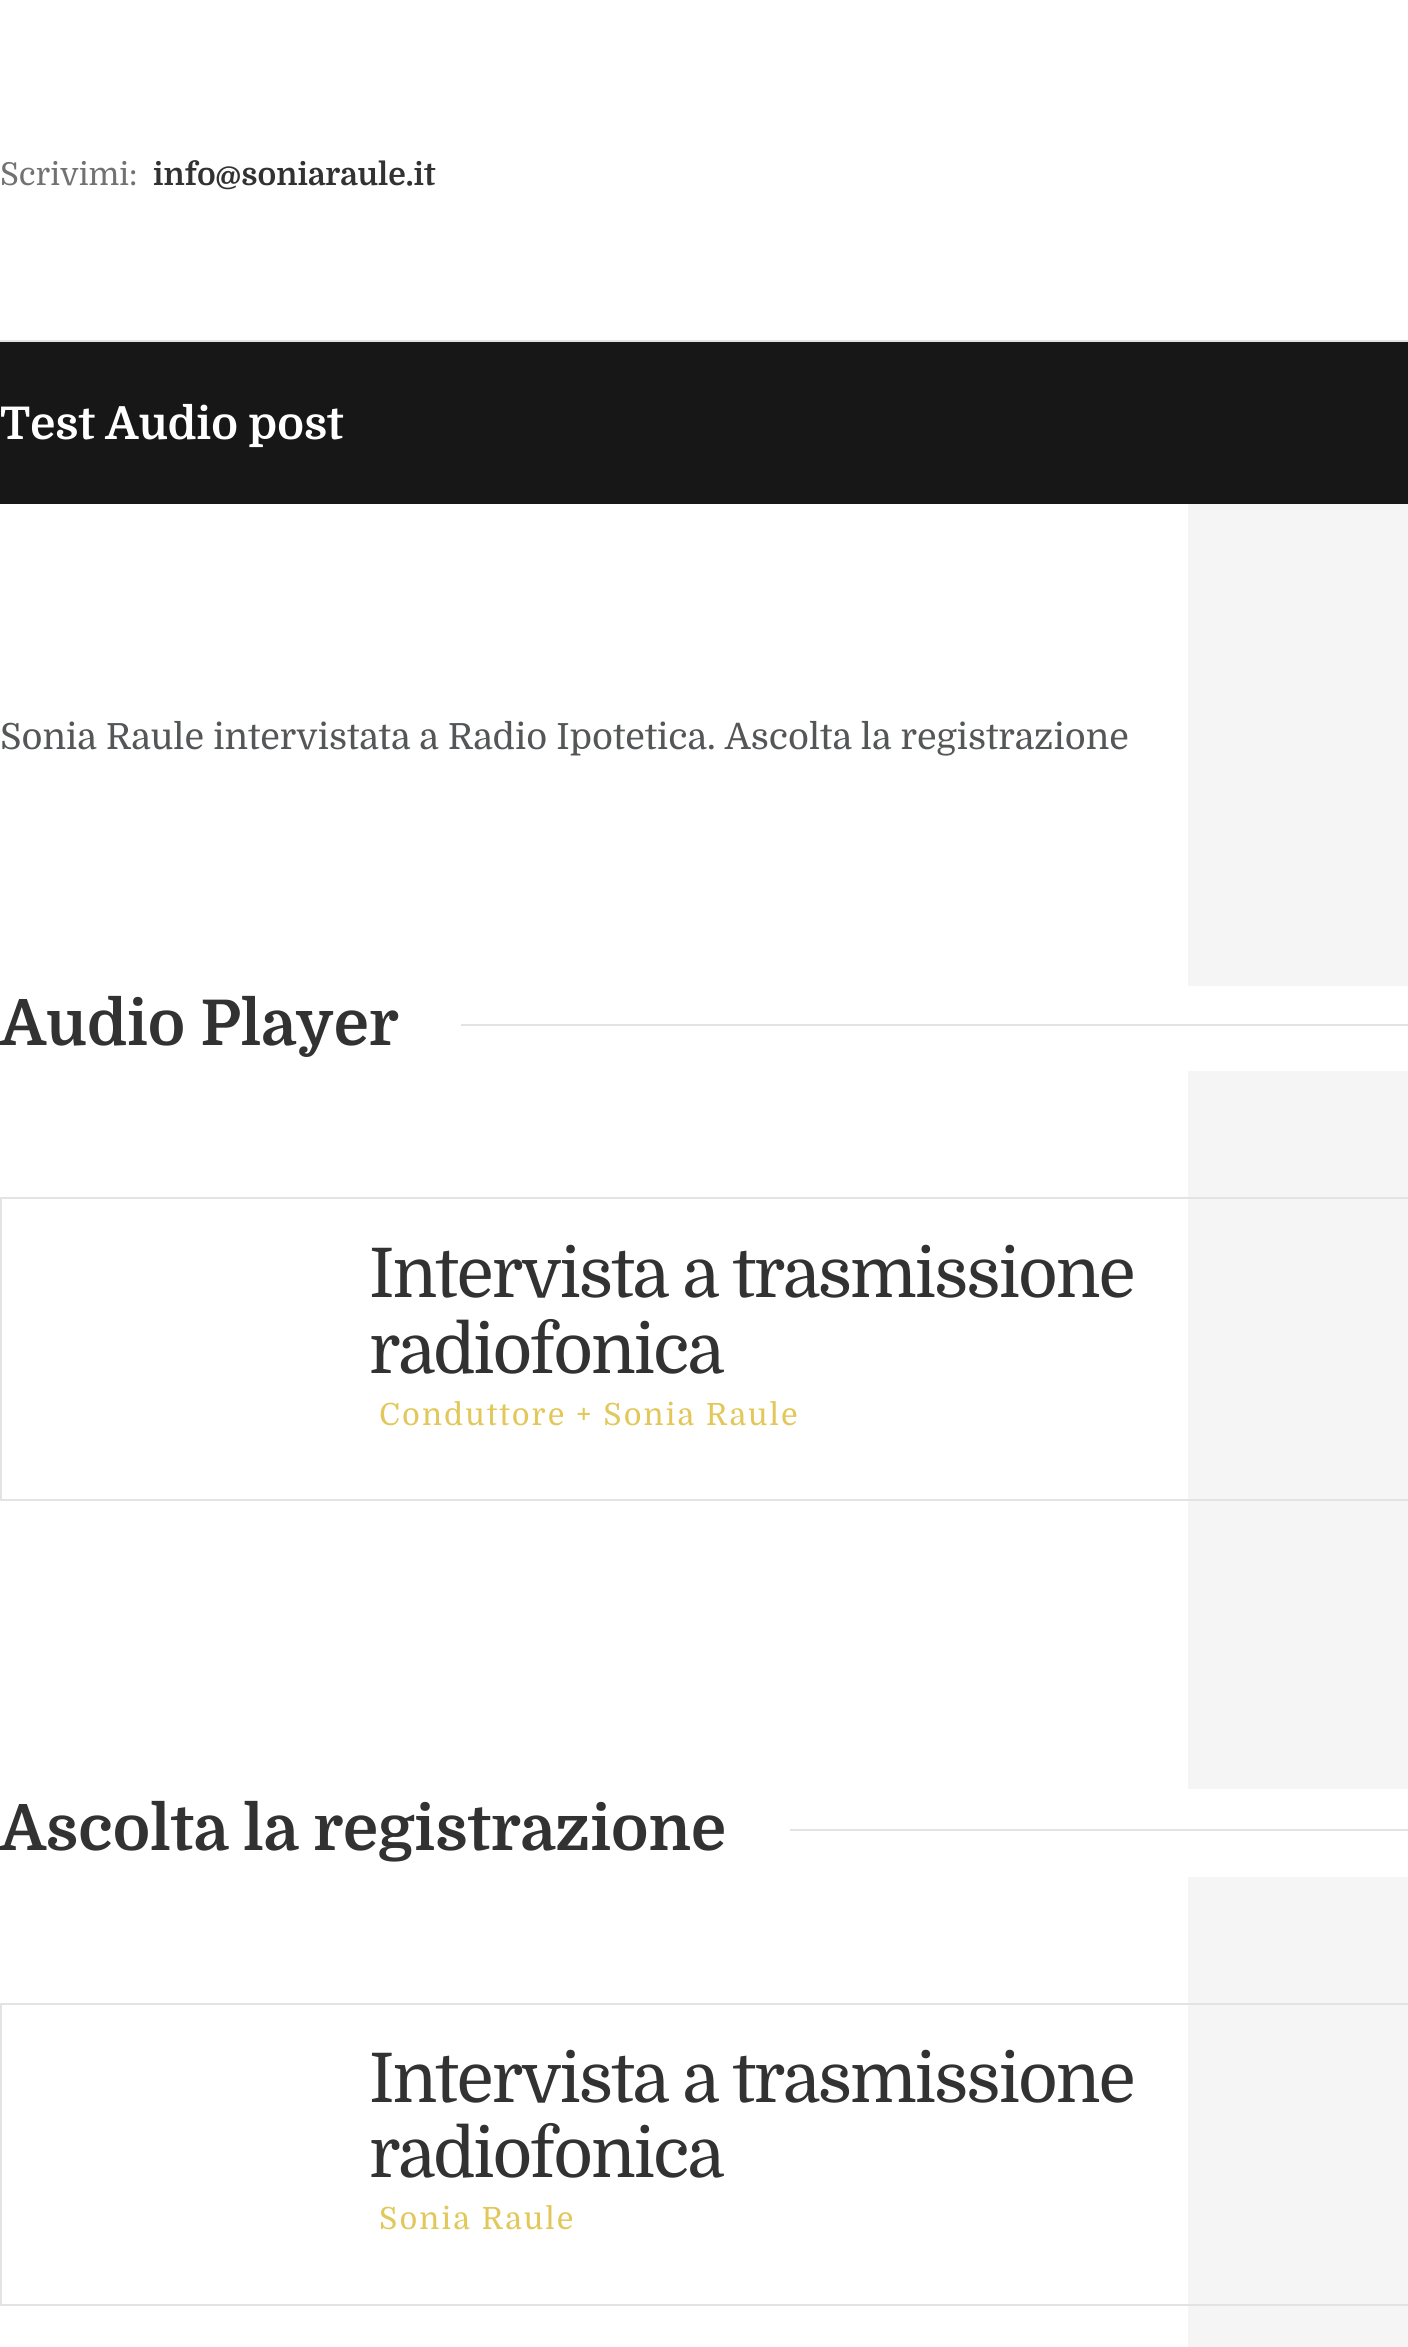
import math
import cairo

surface = cairo.ImageSurface(cairo.FORMAT_RGB24, 1408, 2347)
c = cairo.Context(surface)
options = cairo.FontOptions()
options.set_hint_metrics(cairo.HINT_METRICS_OFF)
options.set_hint_style(cairo.HINT_STYLE_NONE)
c.set_font_options(options)
c.set_miter_limit(4)
def C(code):
 c.set_source_rgb(*(v / 255 for v in bytes.fromhex(code[-6:])))
def F(family, size, italic, bold):
 c.select_font_face(family, cairo.FONT_SLANT_ITALIC if italic else cairo.FONT_SLANT_NORMAL, cairo.FONT_WEIGHT_BOLD if bold else cairo.FONT_WEIGHT_NORMAL)
 c.set_font_size(size)
def T(x, y, s):
 c.move_to(x, y)
 c.show_text(s)
def L(x, y, s, letter, word):
 c.move_to(x, y)
 for ch in s:
  c.show_text(ch)
  c.rel_move_to(letter + word * (ch == ' '), 0)
def R(x, y, w, h):
 c.rectangle(x, y, w, h)
 c.fill()
C('ffffff')
c.paint()
F('Domine',31.5,0,0)
C('727272')
T(0,185,'Scrivimi:')
F('Domine',31.5,0,1)
C('323232')
T(153,185,'info@soniaraule.it')
C('e3e3e3')
R(0,340,1408,2)
C('171717')
R(0,342,1408,162)
F('Domine',45,0,1)
C('ffffff')
T(0,439,'Test Audio post')
F('Domine',36,0,0)
C('545657')
T(0,749,'Sonia Raule intervistata a Radio Ipotetica. Ascolta la registrazione')
C('f5f5f5')
R(1188,504,220,1843)
C('ffffff')
R(1188,986,220,85)
F('Domine',63,0,1)
C('323232')
T(0,1045,'Audio Player')
C('e3e3e3')
R(461,1024,947,2)
c.rectangle(1,1198,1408,302)
c.stroke()
F('Domine',68.4,0,0)
C('323232')
L(369,1297,'Intervista a trasmissione',-2.05,0)
L(369,1373,'radiofonica',-2.05,0)
F('Domine',30.6,0,0)
C('e2c75a')
L(379,1425,'Conduttore + Sonia Raule',2.1,0)
C('ffffff')
R(1188,1789,220,88)
F('Domine',63,0,1)
C('323232')
T(0,1850,'Ascolta la registrazione')
C('e3e3e3')
R(790,1829,618,2)
c.rectangle(1,2004,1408,301)
c.stroke()
F('Domine',68.4,0,0)
C('323232')
L(369,2102,'Intervista a trasmissione',-2.05,0)
L(369,2177,'radiofonica',-2.05,0)
F('Domine',30.6,0,0)
C('e2c75a')
L(379,2229,'Sonia Raule',2.1,0)
surface.write_to_png('o.png')
